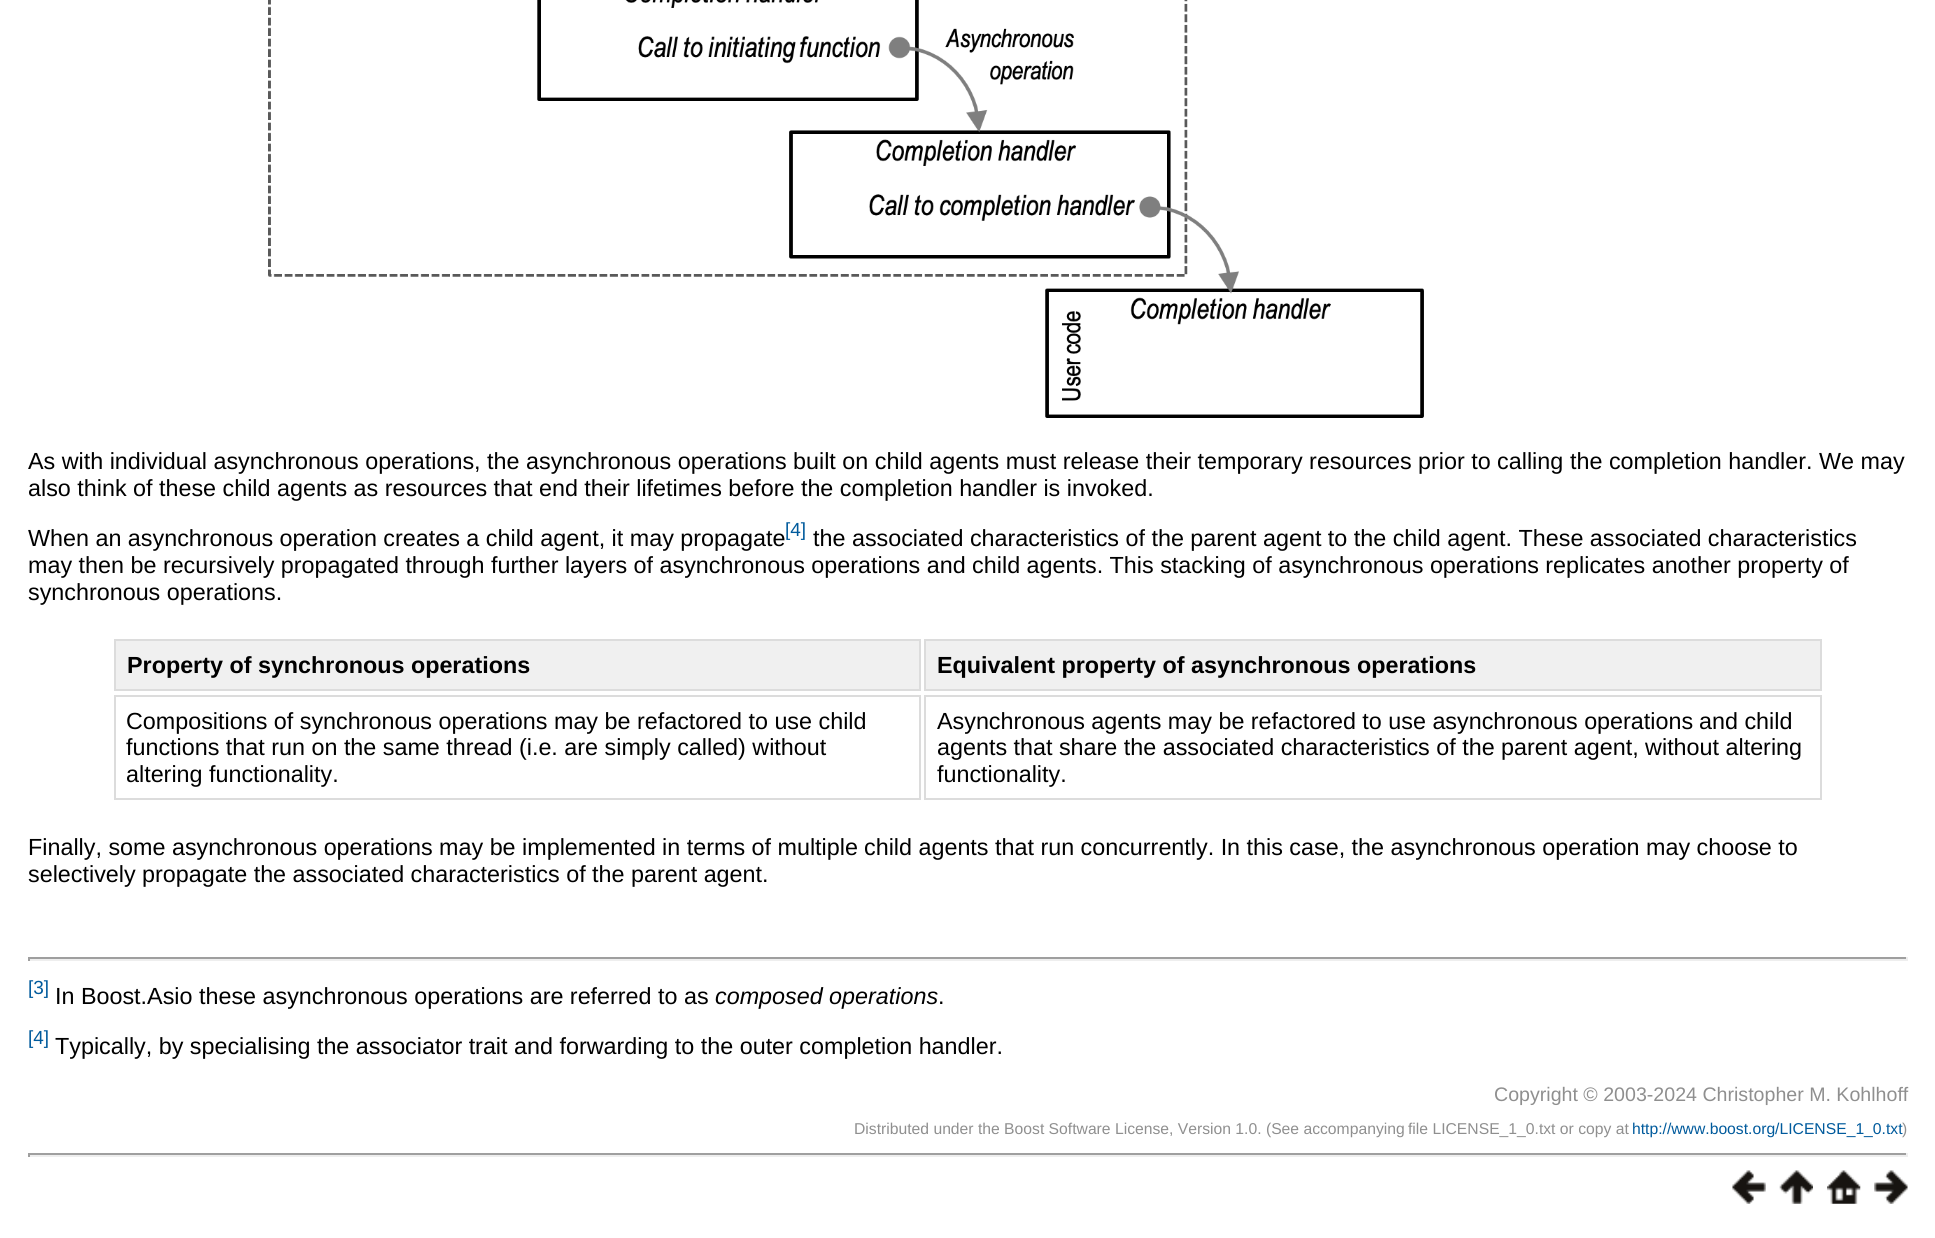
import math
import cairo

surface = cairo.ImageSurface(cairo.FORMAT_RGB24, 1935, 1238)
c = cairo.Context(surface)
options = cairo.FontOptions()
options.set_hint_metrics(cairo.HINT_METRICS_OFF)
options.set_hint_style(cairo.HINT_STYLE_NONE)
c.set_font_options(options)
c.set_miter_limit(4)
def C(code):
 c.set_source_rgb(*(v / 255 for v in bytes.fromhex(code[-6:])))
def F(family, size, italic, bold):
 c.select_font_face(family, cairo.FONT_SLANT_ITALIC if italic else cairo.FONT_SLANT_NORMAL, cairo.FONT_WEIGHT_BOLD if bold else cairo.FONT_WEIGHT_NORMAL)
 c.set_font_size(size)
def T(x, y, s):
 c.move_to(x, y)
 c.show_text(s)
def R(x, y, w, h):
 c.rectangle(x, y, w, h)
 c.fill()
def I(path, x, y, w, h):
 c.save()
 c.set_source_surface(cairo.ImageSurface.create_from_png(path), x, y)
 c.rectangle(x, y, w, h)
 c.fill()
 c.restore()
C('ffffff')
c.paint()
I('1.png',268,0,1156,418)
F('Liberation Sans',23.33,0,0)
C('000000')
T(28,469,'As with individual asynchronous operations, the asynchronous operations')
T(793,469,'built on child agents must release their temporary resources prior to calling')
T(1570,469,'the completion handler. We may')
T(28,496,'also think of these child agents as resources that end their lifetimes before the completion handler is invoked.')
T(28,546,'When an asynchronous operation creates a child agent, it may propagate')
F('Liberation Sans',19,0,0)
C('005a9c')
T(785,536,'[4]')
F('Liberation Sans',23.33,0,0)
C('000000')
T(813,546,'the associated characteristics of the parent agent to the child agent. These associated characteristics')
T(28,573,'may then be recursively propagated through further layers of asynchronous operations and child agents. This stacking of asynchronous operations replicates another property of')
T(28,600,'synchronous operations.')
C('f0f0f0')
c.rectangle(115,640,805,50)
c.fill_preserve()
C('dcdcdc')
c.stroke()
F('Liberation Sans',23.33,0,1)
C('000000')
T(127,673,'Property of synchronous operations')
C('f0f0f0')
c.rectangle(925,640,896,50)
c.fill_preserve()
C('dcdcdc')
c.stroke()
C('000000')
T(937,673,'Equivalent property of asynchronous operations')
c.rectangle(115,696,805,103)
C('dcdcdc')
c.stroke()
F('Liberation Sans',23.33,0,0)
C('000000')
T(126,729,'Compositions of synchronous operations may be refactored to use child')
T(126,755,'functions that run on the same thread (i.e. are simply called) without')
T(126,782,'altering functionality.')
c.rectangle(925,696,896,103)
C('dcdcdc')
c.stroke()
C('000000')
T(937,729,'Asynchronous agents may be refactored to use asynchronous operations')
T(1699,729,'and child')
T(937,755,'agents that share the associated characteristics of the parent agent, without altering')
T(937,782,'functionality.')
T(28,855,'Finally, some asynchronous operations may be implemented in terms of multiple')
T(864,855,'child agents that run concurrently. In this case, the asynchronous operation')
T(1646,855,'may choose to')
T(28,882,'selectively propagate the associated characteristics of the parent agent.')
C('9f9f9f')
R(28,957,1880,2)
C('eeeeee')
R(1906,957,2,4)
R(28,959,1880,2)
C('9f9f9f')
R(28,957,2,4)
F('Liberation Sans',19,0,0)
C('005a9c')
T(28,994,'[3]')
F('Liberation Sans',23.33,0,0)
C('000000')
T(55,1004,'In Boost.Asio these asynchronous operations are referred to as')
F('Liberation Sans',23.33,1,0)
T(715,1004,'composed operations')
F('Liberation Sans',23.33,0,0)
T(938,1004,'.')
F('Liberation Sans',19,0,0)
C('005a9c')
T(28,1044,'[4]')
F('Liberation Sans',23.33,0,0)
C('000000')
T(55,1054,'Typically, by specialising the associator trait and forwarding to the outer completion handler.')
F('Liberation Sans',19.6,0,0)
C('8f8f8f')
T(1494,1101,'Copyright © 2003-2024 Christopher M. Kohlhoff')
F('Liberation Sans',15.7,0,0)
T(854,1134,'Distributed under the Boost Software License, Version 1.0. (See accompanying')
T(1408,1134,'file LICENSE_1_0.txt or copy at')
C('005a9c')
T(1632,1134,'http://www.boost.org/LICENSE_1_0.txt')
C('8f8f8f')
T(1902,1134,')')
C('9f9f9f')
R(28,1153,1880,2)
C('eeeeee')
R(1906,1153,2,4)
R(28,1155,1880,2)
C('9f9f9f')
R(28,1153,2,4)
I('2.png',1732,1170,34,34)
I('3.png',1779,1170,34,34)
I('4.png',1827,1170,34,34)
I('5.png',1874,1170,34,34)
surface.write_to_png('o.png')
